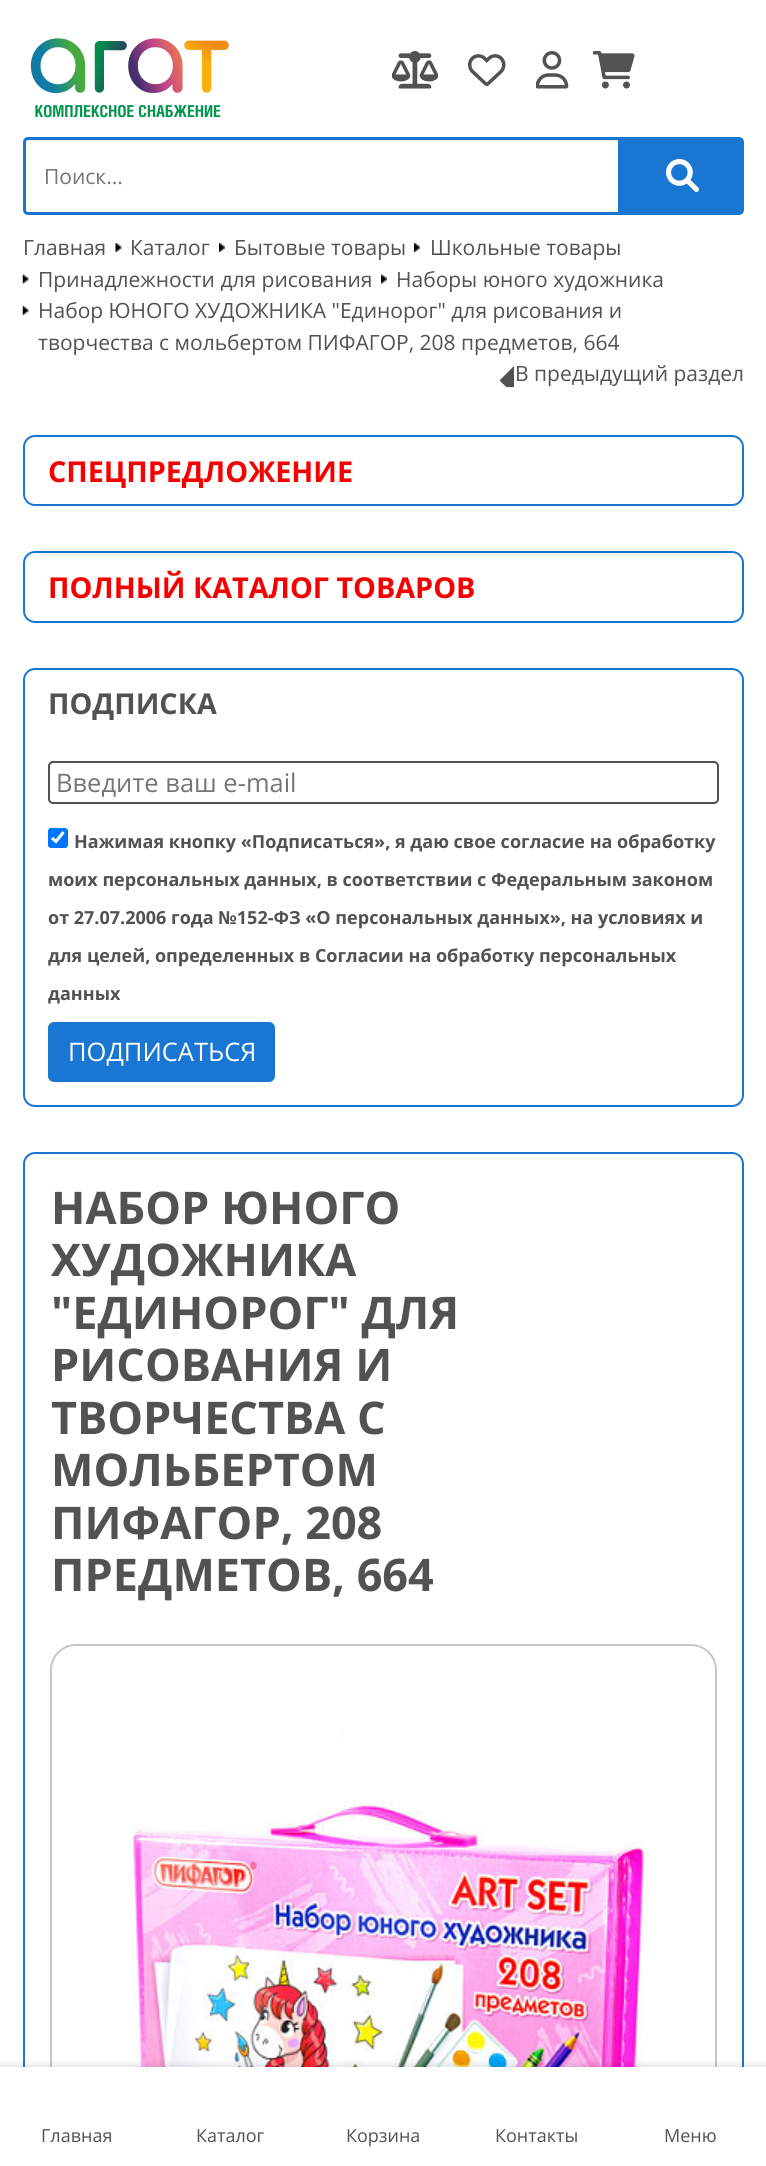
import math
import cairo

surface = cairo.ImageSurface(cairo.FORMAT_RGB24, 766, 2166)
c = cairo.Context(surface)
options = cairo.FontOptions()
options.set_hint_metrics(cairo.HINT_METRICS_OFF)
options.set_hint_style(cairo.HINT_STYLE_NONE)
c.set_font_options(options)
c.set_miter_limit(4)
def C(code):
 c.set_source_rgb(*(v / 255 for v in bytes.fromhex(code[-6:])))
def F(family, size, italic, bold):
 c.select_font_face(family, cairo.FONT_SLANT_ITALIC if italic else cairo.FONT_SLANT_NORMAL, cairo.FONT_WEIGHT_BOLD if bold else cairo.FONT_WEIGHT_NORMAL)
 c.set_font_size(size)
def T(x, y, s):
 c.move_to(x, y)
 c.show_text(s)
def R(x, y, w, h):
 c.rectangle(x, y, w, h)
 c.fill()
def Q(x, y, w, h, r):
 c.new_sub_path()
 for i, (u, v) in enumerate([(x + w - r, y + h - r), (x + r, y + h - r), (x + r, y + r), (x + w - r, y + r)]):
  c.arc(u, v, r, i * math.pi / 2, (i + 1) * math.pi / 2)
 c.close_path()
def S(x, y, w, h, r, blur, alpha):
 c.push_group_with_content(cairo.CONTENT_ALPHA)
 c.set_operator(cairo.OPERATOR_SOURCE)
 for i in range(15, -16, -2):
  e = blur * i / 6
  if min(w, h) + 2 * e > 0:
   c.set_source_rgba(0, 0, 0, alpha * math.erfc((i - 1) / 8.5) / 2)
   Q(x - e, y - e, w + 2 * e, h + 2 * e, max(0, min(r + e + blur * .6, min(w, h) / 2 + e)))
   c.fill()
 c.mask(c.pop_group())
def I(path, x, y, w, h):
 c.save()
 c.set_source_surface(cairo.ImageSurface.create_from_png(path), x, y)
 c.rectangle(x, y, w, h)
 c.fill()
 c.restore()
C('ffffff')
c.paint()
I('1.png',30,38,199,80)
I('2.png',392,51,46,38)
I('3.png',468,54,38,33)
I('4.png',536,51,33,38)
I('5.png',593,51,42,38)
C('f2f2f2')
c.new_path()
c.move_to(27,141)
c.line_to(618,141)
c.line_to(618,140)
c.line_to(28,140)
c.curve_to(26,140,26,141,26,142)
c.close_path()
c.fill()
c.new_path()
c.move_to(28,138.5)
c.line_to(619.5,138.5)
c.line_to(619.5,213.5)
c.line_to(28,213.5)
c.curve_to(26,213.5,24.5,212,24.5,210)
c.line_to(24.5,142)
c.curve_to(24.5,140,26,138.5,28,138.5)
c.close_path()
C('1976d2')
c.set_line_width(3)
c.stroke()
F('Open Sans',21,0,0)
C('757575')
T(44,184,'Поиск...')
C('1976d2')
c.new_path()
c.move_to(622.5,138.5)
c.line_to(739,138.5)
c.curve_to(741,138.5,742.5,140,742.5,142)
c.line_to(742.5,210)
c.curve_to(742.5,212,741,213.5,739,213.5)
c.line_to(622.5,213.5)
c.close_path()
c.fill_preserve()
c.stroke()
I('6.png',666,159,33,33)
C('525252')
T(23,255,'Главная')
I('7.png',115,243,7,9)
T(130,255,'Каталог')
I('8.png',219,243,6,9)
T(234,255,'Бытовые товары')
I('9.png',414,243,6,9)
T(430,255,'Школьные товары')
I('10.png',22,274,7,10)
T(38,287,'Принадлежности для рисования')
I('11.png',381,274,6,10)
T(396,287,'Наборы юного художника')
I('12.png',22,306,7,9)
T(38,318,'Набор ЮНОГО ХУДОЖНИКА "Единорог" для рисования и')
T(38,350,'творчества с мольбертом ПИФАГОР, 208 предметов, 664')
T(515,381,'В предыдущий раздел')
c.save()
c.rectangle(500,366,15,21)
c.clip()
c.new_path()
c.move_to(514,366)
c.line_to(514,394.5)
c.line_to(499.5,380.5)
c.close_path()
c.fill()
c.restore()
Q(24,436,719,69,11)
C('1976d2')
c.set_line_width(2)
c.stroke()
F('Open Sans',28.75,0,1)
C('f60000')
T(48,482,'СПЕЦПРЕДЛОЖЕНИЕ')
Q(24,552,719,70,11)
C('1976d2')
c.stroke()
C('f60000')
T(48,598,'ПОЛНЫЙ КАТАЛОГ ТОВАРОВ')
Q(24,669,719,437,11)
C('1976d2')
c.stroke()
C('525252')
T(48,714,'ПОДПИСКА')
Q(49,762,669,41,4)
c.stroke()
F('Open Sans',25.5,0,0)
C('757575')
T(56,792,'Введите ваш e-mail')
C('0075ff')
Q(48,828,20,20,3)
c.fill()
c.new_path()
c.move_to(52,838)
c.line_to(56,841.5)
c.line_to(63.5,832)
C('ffffff')
c.set_line_width(3.1)
c.stroke()
F('Open Sans',18,0,1)
C('525252')
T(74,848,'Нажимая кнопку «Подписаться», я даю свое согласие на обработку')
T(48,886,'моих персональных данных, в соответствии с Федеральным законом')
T(48,924,'от 27.07.2006 года №152-ФЗ «О персональных данных», на условиях и')
T(48,962,'для целей, определенных в Согласии на обработку персональных')
T(48,1000,'данных')
C('1976d2')
Q(49,1023,225,58,5)
c.fill_preserve()
c.set_line_width(2)
c.stroke()
F('Open Sans',25.5,0,0)
C('ffffff')
T(68,1061,'ПОДПИСАТЬСЯ')
Q(24,1153,719,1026,11)
C('1976d2')
c.stroke()
F('Open Sans',45,0,1)
C('525252')
T(51,1224,'НАБОР ЮНОГО')
T(51,1276,'ХУДОЖНИКА')
T(51,1329,'"ЕДИНОРОГ" ДЛЯ')
T(51,1381,'РИСОВАНИЯ И')
T(51,1434,'ТВОРЧЕСТВА С')
T(51,1486,'МОЛЬБЕРТОМ')
T(51,1539,'ПИФАГОР, 208')
T(51,1591,'ПРЕДМЕТОВ, 664')
Q(51,1645,665,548,25)
C('c7c7c7')
c.stroke()
I('13.png',128,1734,517,333)
C('000000')
S(0,2064,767,99,0,3,.1)
C('ffffff')
R(0,2067,766,99)
F('Open Sans',18,0,0)
C('525252')
T(41,2142,'Главная')
T(196,2142,'Каталог')
T(346,2142,'Корзина')
T(495,2142,'Контакты')
T(664,2142,'Меню')
surface.write_to_png('o.png')
